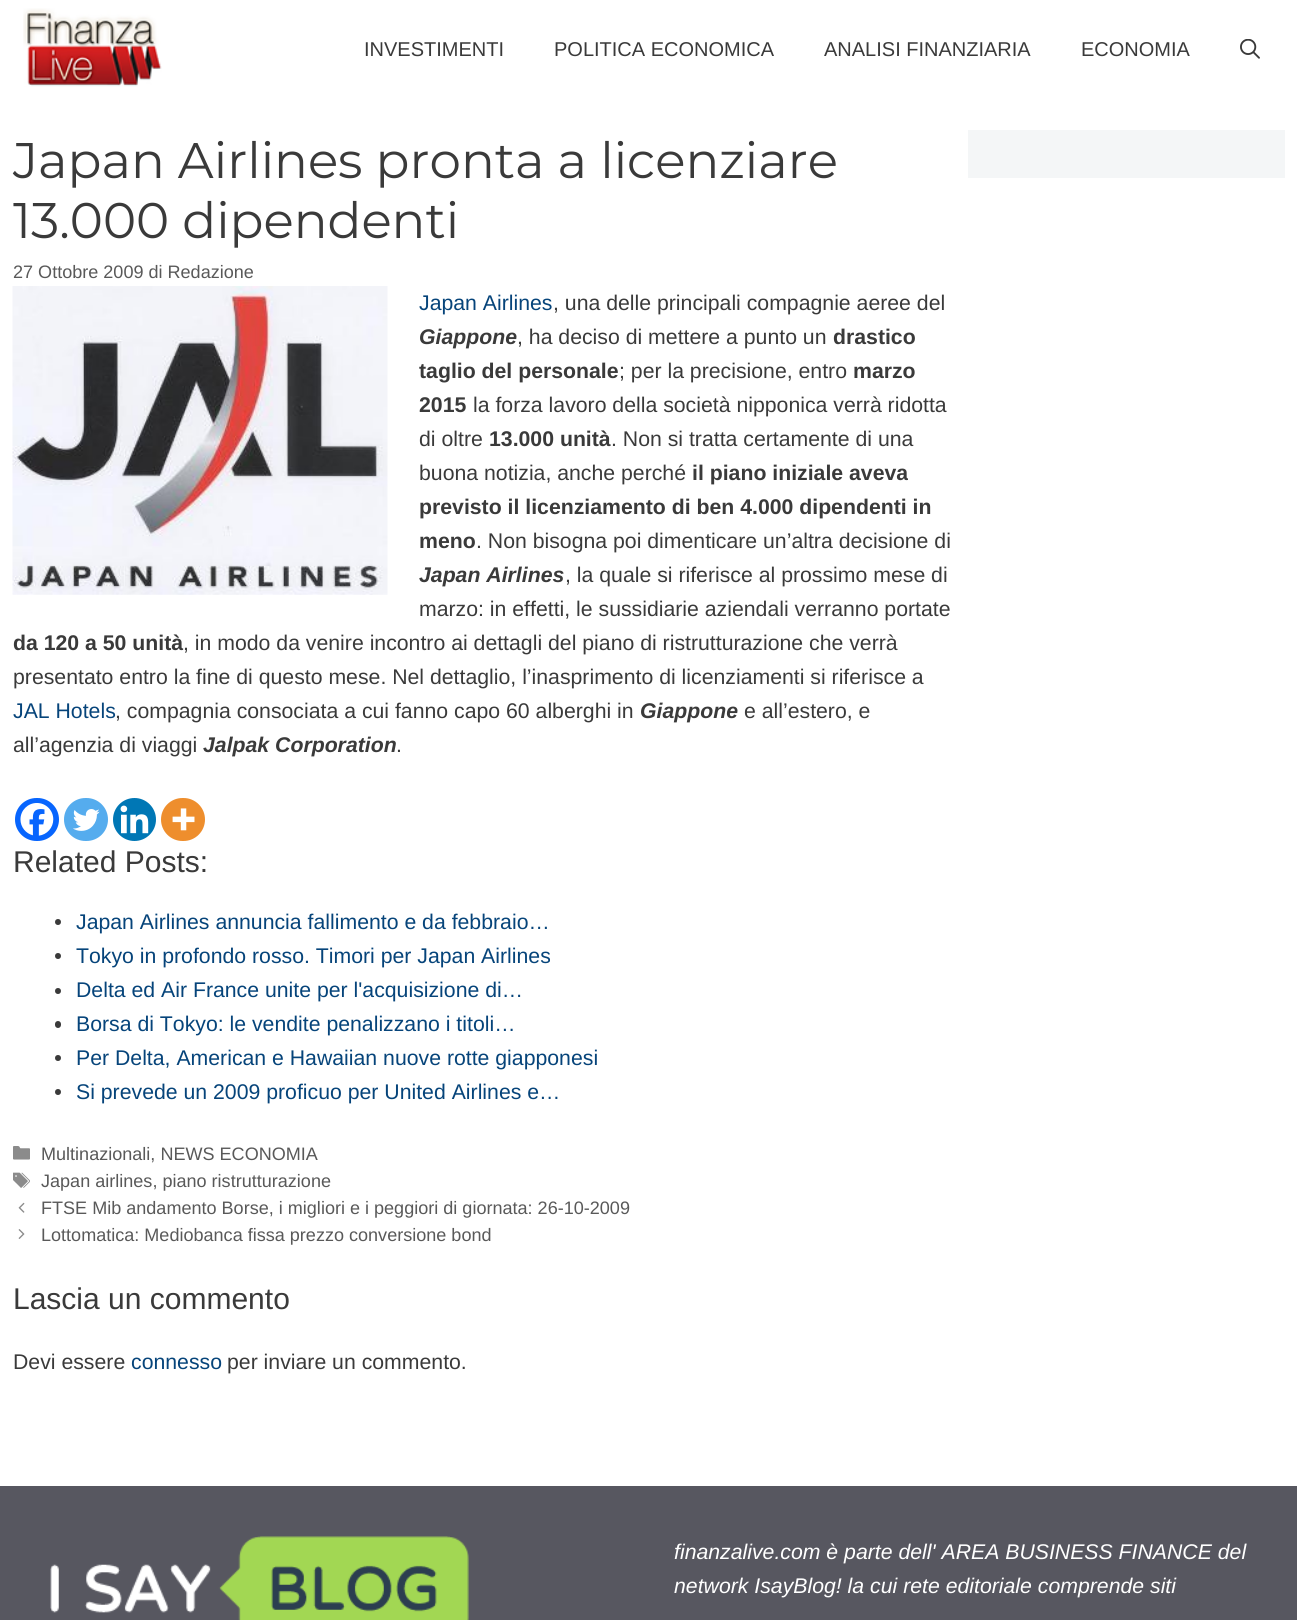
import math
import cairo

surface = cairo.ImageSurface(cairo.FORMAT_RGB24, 1297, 1620)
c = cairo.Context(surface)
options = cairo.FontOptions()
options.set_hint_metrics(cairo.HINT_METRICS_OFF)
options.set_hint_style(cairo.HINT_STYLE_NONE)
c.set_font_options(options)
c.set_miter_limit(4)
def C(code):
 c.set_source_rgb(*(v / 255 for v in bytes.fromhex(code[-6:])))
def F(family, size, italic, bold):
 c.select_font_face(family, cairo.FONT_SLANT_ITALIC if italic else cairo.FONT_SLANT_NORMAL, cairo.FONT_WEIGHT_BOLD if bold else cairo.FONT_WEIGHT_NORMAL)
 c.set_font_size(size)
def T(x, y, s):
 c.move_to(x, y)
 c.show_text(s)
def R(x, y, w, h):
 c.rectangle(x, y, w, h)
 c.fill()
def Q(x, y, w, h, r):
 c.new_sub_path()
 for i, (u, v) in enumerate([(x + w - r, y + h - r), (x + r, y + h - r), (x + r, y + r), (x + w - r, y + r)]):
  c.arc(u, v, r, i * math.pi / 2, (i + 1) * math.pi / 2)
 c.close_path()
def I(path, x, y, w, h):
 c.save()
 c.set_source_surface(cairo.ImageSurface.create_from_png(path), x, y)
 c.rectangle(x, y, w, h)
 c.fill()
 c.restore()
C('ffffff')
c.paint()
I('1.png',23,8,139,79)
F('Liberation Sans',20,0,0)
C('3a3a3a')
T(364,56,'INVESTIMENTI')
T(554,56,'POLITICA ECONOMICA')
T(824,56,'ANALISI FINANZIARIA')
T(1081,56,'ECONOMIA')
I('2.png',1240,39,20,20)
F('Montserrat',50,0,0)
T(13,178,'Japan Airlines pronta a licenziare')
T(13,238,'13.000 dipendenti')
F('Liberation Sans',18.05,0,0)
C('595959')
T(13,278,'27 Ottobre 2009 di Redazione')
I('3.png',12,286,376,309)
F('Liberation Sans',21.25,0,0)
C('06447a')
T(419,310,'Japan Airlines')
C('3a3a3a')
T(553,310,', una delle principali compagnie aeree del')
F('Liberation Sans',21.25,1,1)
T(419,344,'Giappone')
F('Liberation Sans',21.25,0,0)
T(517,344,', ha deciso di mettere a punto un')
F('Liberation Sans',21.25,0,1)
T(833,344,'drastico')
T(419,378,'taglio del personale')
F('Liberation Sans',21.25,0,0)
T(619,378,'; per la precisione, entro')
F('Liberation Sans',21.25,0,1)
T(853,378,'marzo')
T(419,412,'2015')
F('Liberation Sans',21.25,0,0)
T(473,412,'la forza lavoro della società nipponica verrà ridotta')
T(419,446,'di oltre')
F('Liberation Sans',21.25,0,1)
T(489,446,'13.000 unità')
F('Liberation Sans',21.25,0,0)
T(611,446,'. Non si tratta certamente di una')
T(419,480,'buona notizia, anche perché')
F('Liberation Sans',21.25,0,1)
T(692,480,'il piano iniziale aveva')
T(419,514,'previsto il licenziamento di ben 4.000 dipendenti in')
T(419,548,'meno')
F('Liberation Sans',21.25,0,0)
T(476,548,'. Non bisogna poi dimenticare un’altra decisione di')
F('Liberation Sans',21.25,1,1)
T(419,582,'Japan Airlines')
F('Liberation Sans',21.25,0,0)
T(565,582,', la quale si riferisce al prossimo mese di')
T(419,616,'marzo: in effetti, le sussidiarie aziendali verranno portate')
F('Liberation Sans',21.25,0,1)
T(13,650,'da 120 a 50 unità')
F('Liberation Sans',21.25,0,0)
T(183,650,', in modo da venire incontro ai dettagli del piano di ristrutturazione che verrà')
T(13,684,'presentato entro la fine di questo mese. Nel dettaglio, l’inasprimento di licenziamenti si riferisce a')
C('06447a')
T(13,718,'JAL Hotels')
C('3a3a3a')
T(115,718,', compagnia consociata a cui fanno capo 60 alberghi in')
F('Liberation Sans',21.25,1,1)
T(640,718,'Giappone')
F('Liberation Sans',21.25,0,0)
T(744,718,'e all’estero, e')
T(13,752,'all’agenzia di viaggi')
F('Liberation Sans',21.25,1,1)
T(203,752,'Jalpak Corporation')
F('Liberation Sans',21.25,0,0)
T(396,752,'.')
C('0765fe')
Q(15,798,44,43,21.5)
c.fill()
I('4.png',20,803,34,33)
C('55acee')
Q(64,798,44,43,21.5)
c.fill()
I('5.png',73,809,27,22)
C('0077b5')
c.arc(134.5,819.5,21.5,0,2 * math.pi)
c.fill()
I('6.png',120,805,29,29)
C('ee8e2d')
Q(161,798,44,43,21.5)
c.fill()
I('7.png',172,808,23,23)
F('Liberation Sans',30,0,0)
C('3a3a3a')
T(13,872,'Related Posts:')
c.new_path()
c.arc(58,922,3,0,2 * math.pi)
c.fill()
F('Liberation Sans',21.25,0,0)
C('06447a')
T(76,929,'Japan Airlines annuncia fallimento e da febbraio…')
C('3a3a3a')
c.new_path()
c.arc(58,956,3,0,2 * math.pi)
c.fill()
C('06447a')
T(76,963,'Tokyo in profondo rosso. Timori per Japan Airlines')
C('3a3a3a')
c.new_path()
c.arc(58,991,3,0,2 * math.pi)
c.fill()
C('06447a')
T(76,997,'Delta ed Air France unite per l\'acquisizione di…')
C('3a3a3a')
Q(55,1021,6,7,3)
c.fill()
C('06447a')
T(76,1031,'Borsa di Tokyo: le vendite penalizzano i titoli…')
C('3a3a3a')
c.new_path()
c.arc(58,1058,3,0,2 * math.pi)
c.fill()
C('06447a')
T(76,1065,'Per Delta, American e Hawaiian nuove rotte giapponesi')
C('3a3a3a')
c.new_path()
c.arc(58,1092,3,0,2 * math.pi)
c.fill()
C('06447a')
T(76,1099,'Si prevede un 2009 proficuo per United Airlines e…')
I('8.png',13,1146,17,14)
F('Liberation Sans',18.05,0,0)
C('595959')
T(41,1160,'Multinazionali, NEWS ECONOMIA')
I('9.png',13,1172,17,16)
T(41,1187,'Japan airlines, piano ristrutturazione')
I('10.png',18,1202,7,11)
T(41,1214,'FTSE Mib andamento Borse, i migliori e i peggiori di giornata: 26-10-2009')
I('11.png',18,1229,7,10)
T(41,1241,'Lottomatica: Mediobanca fissa prezzo conversione bond')
F('Liberation Sans',30,0,0)
C('3a3a3a')
T(13,1309,'Lascia un commento')
F('Liberation Sans',21.25,0,0)
T(13,1369,'Devi essere')
C('06447a')
T(131,1369,'connesso')
C('3a3a3a')
T(227,1369,'per inviare un commento.')
C('f4f6f7')
R(968,130,317,48)
C('575760')
R(0,1486,1297,134)
I('12.png',50,1536,419,84)
F('Liberation Sans',21.25,1,0)
C('ffffff')
T(674,1559,'finanzalive.com è parte dell\' AREA BUSINESS FINANCE del')
T(674,1593,'network IsayBlog! la cui rete editoriale comprende siti')
surface.write_to_png('o.png')
